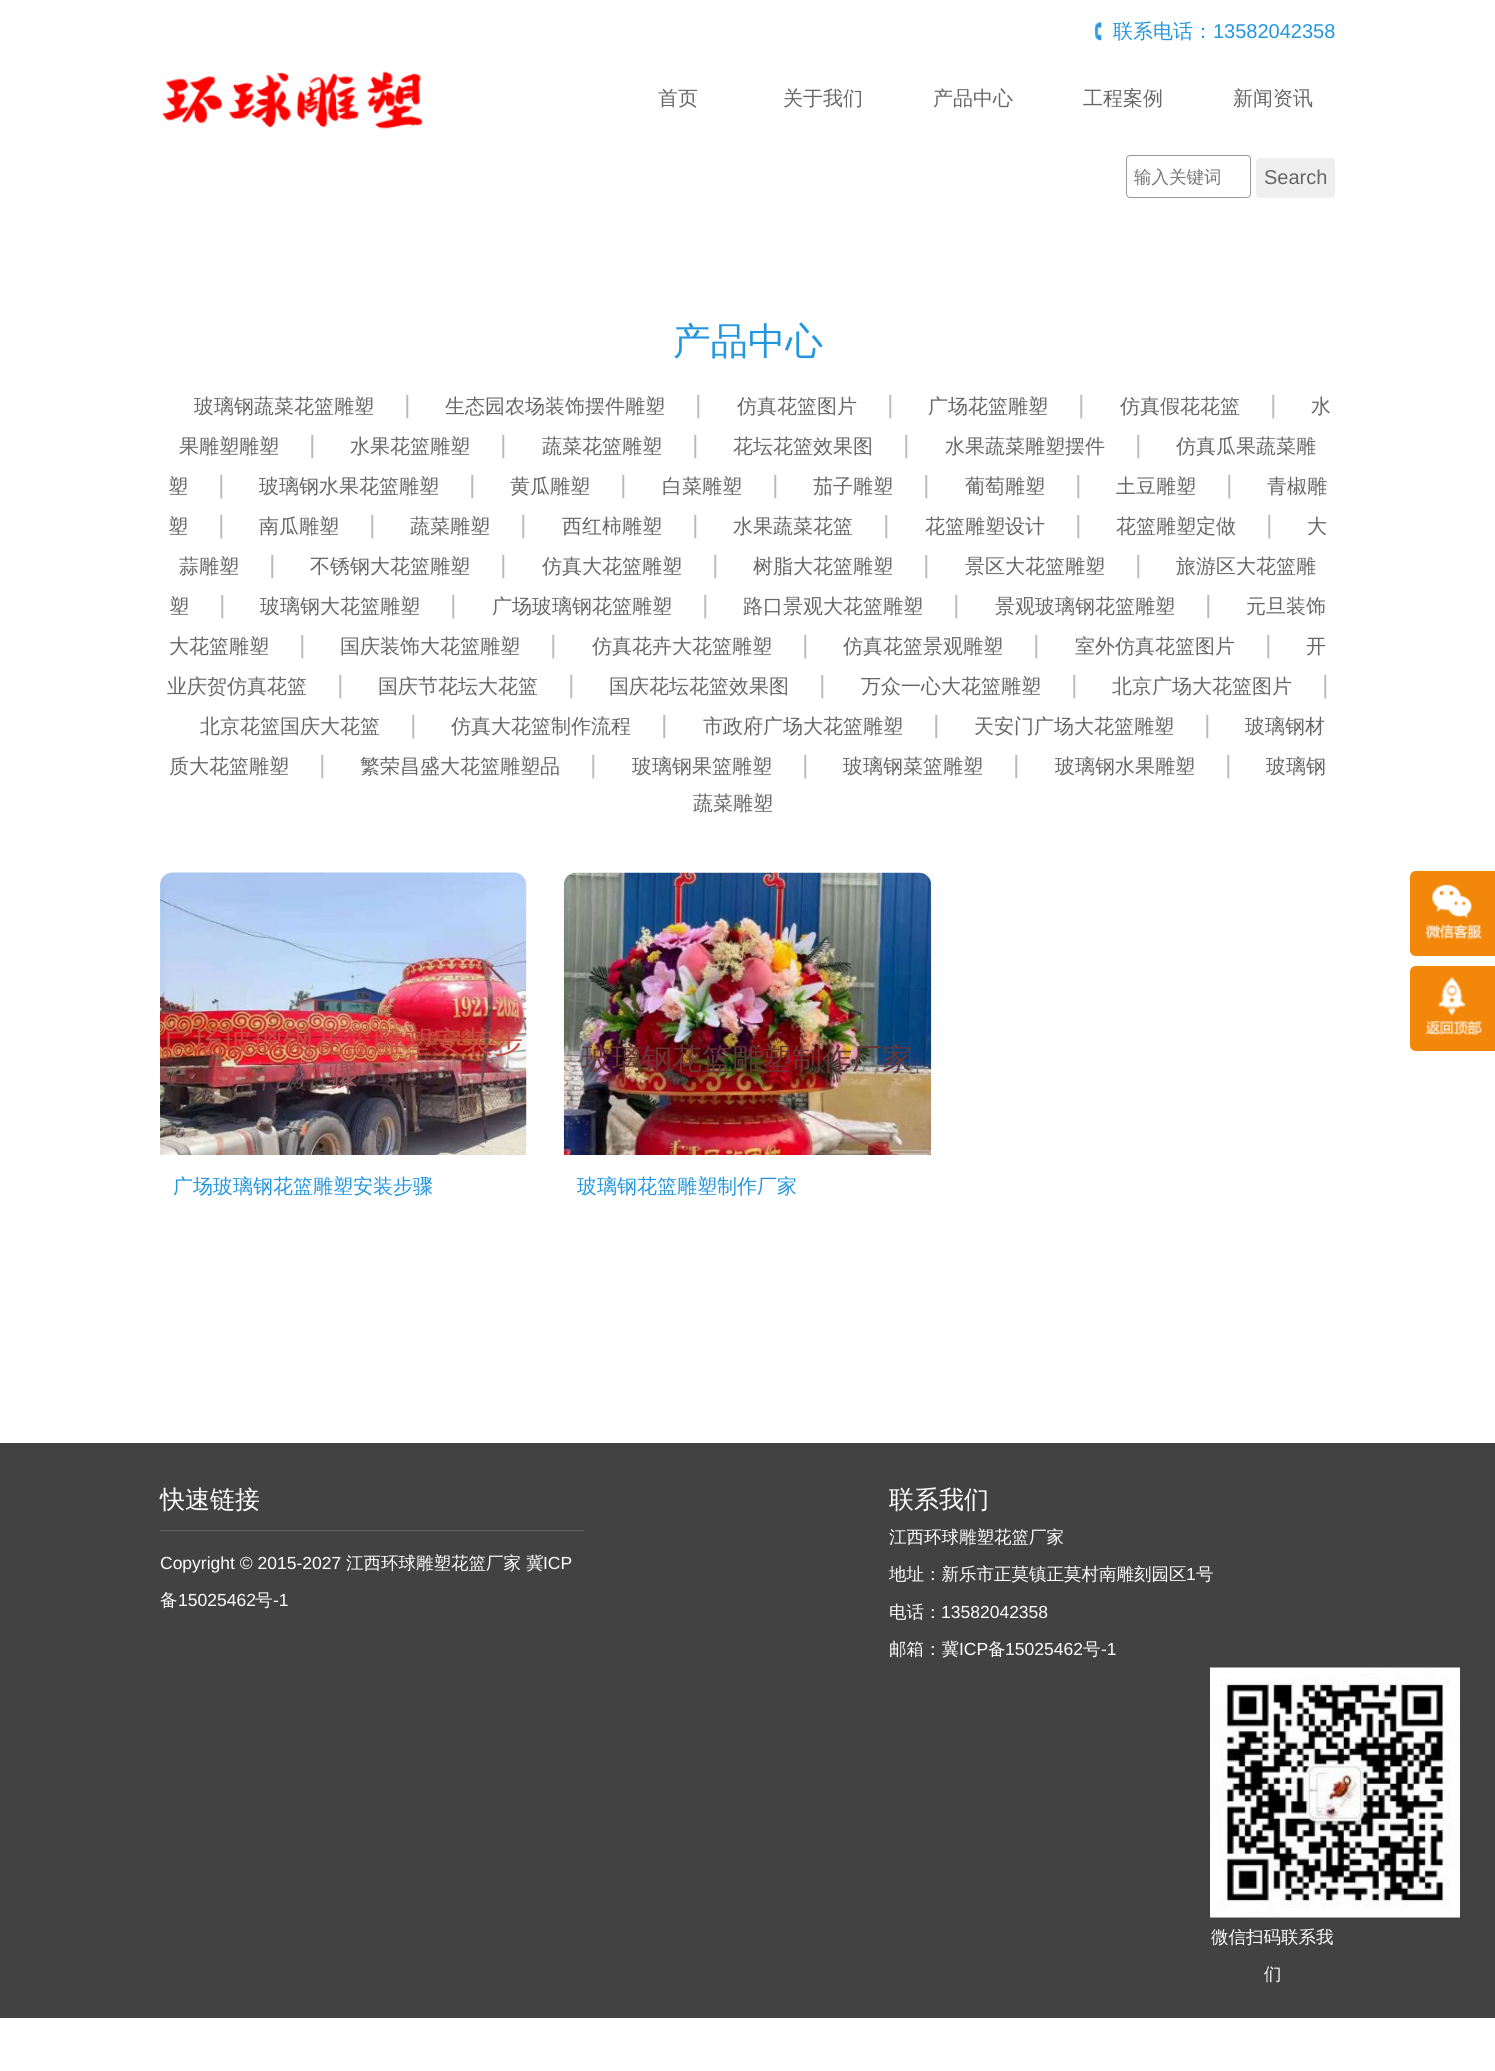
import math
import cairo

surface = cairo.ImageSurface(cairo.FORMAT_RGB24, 1495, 2071)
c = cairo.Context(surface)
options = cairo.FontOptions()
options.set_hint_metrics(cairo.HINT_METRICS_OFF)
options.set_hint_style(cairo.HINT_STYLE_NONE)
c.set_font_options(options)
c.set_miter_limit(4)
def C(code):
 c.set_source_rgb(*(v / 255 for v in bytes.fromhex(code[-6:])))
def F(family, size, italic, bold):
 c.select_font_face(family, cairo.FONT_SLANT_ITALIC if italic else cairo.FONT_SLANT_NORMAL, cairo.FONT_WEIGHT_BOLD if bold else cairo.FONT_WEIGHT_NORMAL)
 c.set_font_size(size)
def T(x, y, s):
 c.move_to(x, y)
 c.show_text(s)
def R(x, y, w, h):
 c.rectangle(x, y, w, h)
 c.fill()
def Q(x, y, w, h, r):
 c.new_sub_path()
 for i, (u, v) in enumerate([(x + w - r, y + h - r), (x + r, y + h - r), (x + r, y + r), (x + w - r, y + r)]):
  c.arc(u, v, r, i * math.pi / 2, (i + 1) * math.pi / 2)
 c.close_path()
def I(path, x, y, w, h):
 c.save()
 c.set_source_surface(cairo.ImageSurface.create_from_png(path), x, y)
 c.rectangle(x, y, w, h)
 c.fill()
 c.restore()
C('ffffff')
c.paint()
I('1.png',1094,22,8,19)
F('WenQuanYi Zen Hei Medium',20,0,0)
C('2496df')
T(1113,38,'联系电话：')
F('Liberation Sans',20,0,0)
T(1213,38,'13582042358')
I('2.png',162,71,261,58)
F('WenQuanYi Zen Hei Medium',20,0,0)
C('666666')
T(658,105,'首页')
T(783,105,'关于我们')
T(933,105,'产品中心')
T(1083,105,'工程案例')
T(1233,105,'新闻资讯')
Q(1126.5,155.5,124,42,3.5)
C('999999')
c.set_line_width(1)
c.stroke()
F('WenQuanYi Zen Hei Medium',17.5,0,0)
C('757575')
T(1134,183,'输入关键词')
C('efefef')
Q(1256,158,79,40,4)
c.fill()
F('Liberation Sans',20,0,0)
C('666666')
T(1264,184,'Search')
F('WenQuanYi Zen Hei Medium',37.5,0,0)
C('2496df')
T(673,354,'产品中心')
F('WenQuanYi Zen Hei Medium',20,0,0)
C('666666')
T(194,413,'玻璃钢蔬菜花篮雕塑')
F('Liberation Sans',25,0,0)
C('bcbcbc')
T(404,413,'|')
F('WenQuanYi Zen Hei Medium',20,0,0)
C('666666')
T(445,413,'生态园农场装饰摆件雕塑')
F('Liberation Sans',25,0,0)
C('bcbcbc')
T(695,413,'|')
F('WenQuanYi Zen Hei Medium',20,0,0)
C('666666')
T(737,413,'仿真花篮图片')
F('Liberation Sans',25,0,0)
C('bcbcbc')
T(887,413,'|')
F('WenQuanYi Zen Hei Medium',20,0,0)
C('666666')
T(928,413,'广场花篮雕塑')
F('Liberation Sans',25,0,0)
C('bcbcbc')
T(1078,413,'|')
F('WenQuanYi Zen Hei Medium',20,0,0)
C('666666')
T(1120,413,'仿真假花花篮')
F('Liberation Sans',25,0,0)
C('bcbcbc')
T(1270,413,'|')
F('WenQuanYi Zen Hei Medium',20,0,0)
C('666666')
T(1311,413,'水')
T(179,453,'果雕塑雕塑')
F('Liberation Sans',25,0,0)
C('bcbcbc')
T(309,453,'|')
F('WenQuanYi Zen Hei Medium',20,0,0)
C('666666')
T(350,453,'水果花篮雕塑')
F('Liberation Sans',25,0,0)
C('bcbcbc')
T(500,453,'|')
F('WenQuanYi Zen Hei Medium',20,0,0)
C('666666')
T(542,453,'蔬菜花篮雕塑')
F('Liberation Sans',25,0,0)
C('bcbcbc')
T(692,453,'|')
F('WenQuanYi Zen Hei Medium',20,0,0)
C('666666')
T(733,453,'花坛花篮效果图')
F('Liberation Sans',25,0,0)
C('bcbcbc')
T(903,453,'|')
F('WenQuanYi Zen Hei Medium',20,0,0)
C('666666')
T(945,453,'水果蔬菜雕塑摆件')
F('Liberation Sans',25,0,0)
C('bcbcbc')
T(1135,453,'|')
F('WenQuanYi Zen Hei Medium',20,0,0)
C('666666')
T(1176,453,'仿真瓜果蔬菜雕')
T(168,493,'塑')
F('Liberation Sans',25,0,0)
C('bcbcbc')
T(218,493,'|')
F('WenQuanYi Zen Hei Medium',20,0,0)
C('666666')
T(259,493,'玻璃钢水果花篮雕塑')
F('Liberation Sans',25,0,0)
C('bcbcbc')
T(469,493,'|')
F('WenQuanYi Zen Hei Medium',20,0,0)
C('666666')
T(510,493,'黄瓜雕塑')
F('Liberation Sans',25,0,0)
C('bcbcbc')
T(620,493,'|')
F('WenQuanYi Zen Hei Medium',20,0,0)
C('666666')
T(662,493,'白菜雕塑')
F('Liberation Sans',25,0,0)
C('bcbcbc')
T(772,493,'|')
F('WenQuanYi Zen Hei Medium',20,0,0)
C('666666')
T(813,493,'茄子雕塑')
F('Liberation Sans',25,0,0)
C('bcbcbc')
T(923,493,'|')
F('WenQuanYi Zen Hei Medium',20,0,0)
C('666666')
T(965,493,'葡萄雕塑')
F('Liberation Sans',25,0,0)
C('bcbcbc')
T(1075,493,'|')
F('WenQuanYi Zen Hei Medium',20,0,0)
C('666666')
T(1116,493,'土豆雕塑')
F('Liberation Sans',25,0,0)
C('bcbcbc')
T(1226,493,'|')
F('WenQuanYi Zen Hei Medium',20,0,0)
C('666666')
T(1267,493,'青椒雕')
T(168,533,'塑')
F('Liberation Sans',25,0,0)
C('bcbcbc')
T(218,533,'|')
F('WenQuanYi Zen Hei Medium',20,0,0)
C('666666')
T(259,533,'南瓜雕塑')
F('Liberation Sans',25,0,0)
C('bcbcbc')
T(369,533,'|')
F('WenQuanYi Zen Hei Medium',20,0,0)
C('666666')
T(410,533,'蔬菜雕塑')
F('Liberation Sans',25,0,0)
C('bcbcbc')
T(520,533,'|')
F('WenQuanYi Zen Hei Medium',20,0,0)
C('666666')
T(562,533,'西红柿雕塑')
F('Liberation Sans',25,0,0)
C('bcbcbc')
T(692,533,'|')
F('WenQuanYi Zen Hei Medium',20,0,0)
C('666666')
T(733,533,'水果蔬菜花篮')
F('Liberation Sans',25,0,0)
C('bcbcbc')
T(883,533,'|')
F('WenQuanYi Zen Hei Medium',20,0,0)
C('666666')
T(925,533,'花篮雕塑设计')
F('Liberation Sans',25,0,0)
C('bcbcbc')
T(1075,533,'|')
F('WenQuanYi Zen Hei Medium',20,0,0)
C('666666')
T(1116,533,'花篮雕塑定做')
F('Liberation Sans',25,0,0)
C('bcbcbc')
T(1266,533,'|')
F('WenQuanYi Zen Hei Medium',20,0,0)
C('666666')
T(1307,533,'大')
T(179,573,'蒜雕塑')
F('Liberation Sans',25,0,0)
C('bcbcbc')
T(269,573,'|')
F('WenQuanYi Zen Hei Medium',20,0,0)
C('666666')
T(310,573,'不锈钢大花篮雕塑')
F('Liberation Sans',25,0,0)
C('bcbcbc')
T(500,573,'|')
F('WenQuanYi Zen Hei Medium',20,0,0)
C('666666')
T(542,573,'仿真大花篮雕塑')
F('Liberation Sans',25,0,0)
C('bcbcbc')
T(712,573,'|')
F('WenQuanYi Zen Hei Medium',20,0,0)
C('666666')
T(753,573,'树脂大花篮雕塑')
F('Liberation Sans',25,0,0)
C('bcbcbc')
T(923,573,'|')
F('WenQuanYi Zen Hei Medium',20,0,0)
C('666666')
T(965,573,'景区大花篮雕塑')
F('Liberation Sans',25,0,0)
C('bcbcbc')
T(1135,573,'|')
F('WenQuanYi Zen Hei Medium',20,0,0)
C('666666')
T(1176,573,'旅游区大花篮雕')
T(169,613,'塑')
F('Liberation Sans',25,0,0)
C('bcbcbc')
T(219,613,'|')
F('WenQuanYi Zen Hei Medium',20,0,0)
C('666666')
T(260,613,'玻璃钢大花篮雕塑')
F('Liberation Sans',25,0,0)
C('bcbcbc')
T(450,613,'|')
F('WenQuanYi Zen Hei Medium',20,0,0)
C('666666')
T(492,613,'广场玻璃钢花篮雕塑')
F('Liberation Sans',25,0,0)
C('bcbcbc')
T(702,613,'|')
F('WenQuanYi Zen Hei Medium',20,0,0)
C('666666')
T(743,613,'路口景观大花篮雕塑')
F('Liberation Sans',25,0,0)
C('bcbcbc')
T(953,613,'|')
F('WenQuanYi Zen Hei Medium',20,0,0)
C('666666')
T(995,613,'景观玻璃钢花篮雕塑')
F('Liberation Sans',25,0,0)
C('bcbcbc')
T(1205,613,'|')
F('WenQuanYi Zen Hei Medium',20,0,0)
C('666666')
T(1246,613,'元旦装饰')
T(169,653,'大花篮雕塑')
F('Liberation Sans',25,0,0)
C('bcbcbc')
T(299,653,'|')
F('WenQuanYi Zen Hei Medium',20,0,0)
C('666666')
T(340,653,'国庆装饰大花篮雕塑')
F('Liberation Sans',25,0,0)
C('bcbcbc')
T(550,653,'|')
F('WenQuanYi Zen Hei Medium',20,0,0)
C('666666')
T(592,653,'仿真花卉大花篮雕塑')
F('Liberation Sans',25,0,0)
C('bcbcbc')
T(802,653,'|')
F('WenQuanYi Zen Hei Medium',20,0,0)
C('666666')
T(843,653,'仿真花篮景观雕塑')
F('Liberation Sans',25,0,0)
C('bcbcbc')
T(1033,653,'|')
F('WenQuanYi Zen Hei Medium',20,0,0)
C('666666')
T(1075,653,'室外仿真花篮图片')
F('Liberation Sans',25,0,0)
C('bcbcbc')
T(1265,653,'|')
F('WenQuanYi Zen Hei Medium',20,0,0)
C('666666')
T(1306,653,'开')
T(167,693,'业庆贺仿真花篮')
F('Liberation Sans',25,0,0)
C('bcbcbc')
T(337,693,'|')
F('WenQuanYi Zen Hei Medium',20,0,0)
C('666666')
T(378,693,'国庆节花坛大花篮')
F('Liberation Sans',25,0,0)
C('bcbcbc')
T(568,693,'|')
F('WenQuanYi Zen Hei Medium',20,0,0)
C('666666')
T(609,693,'国庆花坛花篮效果图')
F('Liberation Sans',25,0,0)
C('bcbcbc')
T(819,693,'|')
F('WenQuanYi Zen Hei Medium',20,0,0)
C('666666')
T(861,693,'万众一心大花篮雕塑')
F('Liberation Sans',25,0,0)
C('bcbcbc')
T(1071,693,'|')
F('WenQuanYi Zen Hei Medium',20,0,0)
C('666666')
T(1112,693,'北京广场大花篮图片')
F('Liberation Sans',25,0,0)
C('bcbcbc')
T(1322,693,'|')
F('WenQuanYi Zen Hei Medium',20,0,0)
C('666666')
T(200,733,'北京花篮国庆大花篮')
F('Liberation Sans',25,0,0)
C('bcbcbc')
T(410,733,'|')
F('WenQuanYi Zen Hei Medium',20,0,0)
C('666666')
T(451,733,'仿真大花篮制作流程')
F('Liberation Sans',25,0,0)
C('bcbcbc')
T(661,733,'|')
F('WenQuanYi Zen Hei Medium',20,0,0)
C('666666')
T(703,733,'市政府广场大花篮雕塑')
F('Liberation Sans',25,0,0)
C('bcbcbc')
T(933,733,'|')
F('WenQuanYi Zen Hei Medium',20,0,0)
C('666666')
T(974,733,'天安门广场大花篮雕塑')
F('Liberation Sans',25,0,0)
C('bcbcbc')
T(1204,733,'|')
F('WenQuanYi Zen Hei Medium',20,0,0)
C('666666')
T(1245,733,'玻璃钢材')
T(169,773,'质大花篮雕塑')
F('Liberation Sans',25,0,0)
C('bcbcbc')
T(319,773,'|')
F('WenQuanYi Zen Hei Medium',20,0,0)
C('666666')
T(360,773,'繁荣昌盛大花篮雕塑品')
F('Liberation Sans',25,0,0)
C('bcbcbc')
T(590,773,'|')
F('WenQuanYi Zen Hei Medium',20,0,0)
C('666666')
T(632,773,'玻璃钢果篮雕塑')
F('Liberation Sans',25,0,0)
C('bcbcbc')
T(802,773,'|')
F('WenQuanYi Zen Hei Medium',20,0,0)
C('666666')
T(843,773,'玻璃钢菜篮雕塑')
F('Liberation Sans',25,0,0)
C('bcbcbc')
T(1013,773,'|')
F('WenQuanYi Zen Hei Medium',20,0,0)
C('666666')
T(1055,773,'玻璃钢水果雕塑')
F('Liberation Sans',25,0,0)
C('bcbcbc')
T(1225,773,'|')
F('WenQuanYi Zen Hei Medium',20,0,0)
C('666666')
T(1266,773,'玻璃钢')
T(693,810,'蔬菜雕塑')
I('3.png',160,872,367,283)
F('WenQuanYi Zen Hei Medium',30,0,0)
C('cc4b42')
T(163,1052,'广场玻璃钢花篮雕塑安装步')
C('9c525a')
T(328,1085,'骤')
F('WenQuanYi Zen Hei Medium',20,0,0)
C('2496df')
T(173,1193,'广场玻璃钢花篮雕塑安装步骤')
I('4.png',563,872,369,283)
F('WenQuanYi Zen Hei Medium',30,0,0)
C('673635')
T(582,1069,'玻璃钢花篮雕塑制作厂家')
F('WenQuanYi Zen Hei Medium',20,0,0)
C('2496df')
T(577,1193,'玻璃钢花篮雕塑制作厂家')
C('f28709')
c.new_path()
c.move_to(1416,871)
c.line_to(1495,871)
c.line_to(1495,956)
c.line_to(1416,956)
c.curve_to(1412.5,956,1410,953.5,1410,950)
c.line_to(1410,877)
c.curve_to(1410,873.5,1412.5,871,1416,871)
c.close_path()
c.fill()
I('5.png',1425,884,57,55)
c.new_path()
c.move_to(1416,966)
c.line_to(1495,966)
c.line_to(1495,1051)
c.line_to(1416,1051)
c.curve_to(1412.5,1051,1410,1048.5,1410,1045)
c.line_to(1410,972)
c.curve_to(1410,968.5,1412.5,966,1416,966)
c.close_path()
c.fill()
I('6.png',1426,977,56,59)
C('424242')
R(0,1443,1495,575)
F('WenQuanYi Zen Hei Medium',25,0,0)
C('ffffff')
T(160,1508,'快速链接')
C('5f5f5f')
R(160,1530,424,1)
F('Liberation Sans',17.5,0,0)
C('ffffff')
T(160,1569,'Copyright © 2015-2027')
F('WenQuanYi Zen Hei Medium',17.5,0,0)
T(346,1569,'江西环球雕塑花篮厂家')
T(526,1569,'冀')
F('Liberation Sans',17.5,0,0)
T(543,1569,'ICP')
F('WenQuanYi Zen Hei Medium',17.5,0,0)
T(160,1606,'备')
F('Liberation Sans',17.5,0,0)
T(178,1606,'15025462')
F('WenQuanYi Zen Hei Medium',17.5,0,0)
T(255,1606,'号')
F('Liberation Sans',17.5,0,0)
T(273,1606,'-1')
F('WenQuanYi Zen Hei Medium',25,0,0)
T(889,1508,'联系我们')
F('WenQuanYi Zen Hei Medium',17.5,0,0)
T(889,1543,'江西环球雕塑花篮厂家')
T(889,1580,'地址：新乐市正莫镇正莫村南雕刻园区')
F('Liberation Sans',17.5,0,0)
T(1186,1580,'1')
F('WenQuanYi Zen Hei Medium',17.5,0,0)
T(1196,1580,'号')
T(889,1618,'电话：')
F('Liberation Sans',17.5,0,0)
T(941,1618,'13582042358')
F('WenQuanYi Zen Hei Medium',17.5,0,0)
T(889,1655,'邮箱：冀')
F('Liberation Sans',17.5,0,0)
T(959,1655,'ICP')
F('WenQuanYi Zen Hei Medium',17.5,0,0)
T(988,1655,'备')
F('Liberation Sans',17.5,0,0)
T(1005,1655,'15025462')
F('WenQuanYi Zen Hei Medium',17.5,0,0)
T(1083,1655,'号')
F('Liberation Sans',17.5,0,0)
T(1101,1655,'-1')
I('7.png',1210,1667,250,251)
F('WenQuanYi Zen Hei Medium',17.5,0,0)
T(1211,1943,'微信扫码联系我')
T(1264,1980,'们')
surface.write_to_png('o.png')
